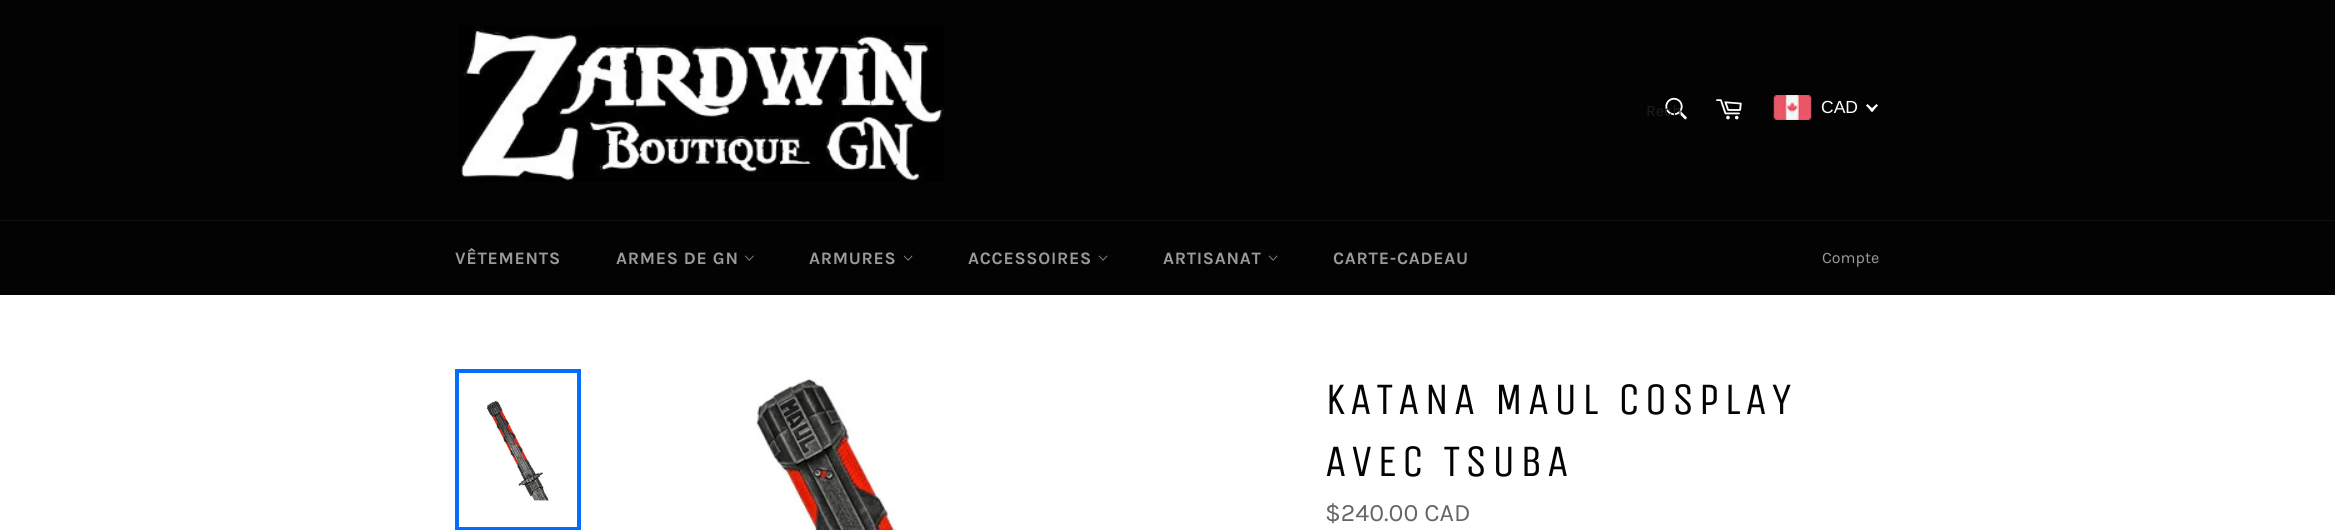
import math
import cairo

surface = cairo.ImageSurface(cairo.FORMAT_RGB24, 2335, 530)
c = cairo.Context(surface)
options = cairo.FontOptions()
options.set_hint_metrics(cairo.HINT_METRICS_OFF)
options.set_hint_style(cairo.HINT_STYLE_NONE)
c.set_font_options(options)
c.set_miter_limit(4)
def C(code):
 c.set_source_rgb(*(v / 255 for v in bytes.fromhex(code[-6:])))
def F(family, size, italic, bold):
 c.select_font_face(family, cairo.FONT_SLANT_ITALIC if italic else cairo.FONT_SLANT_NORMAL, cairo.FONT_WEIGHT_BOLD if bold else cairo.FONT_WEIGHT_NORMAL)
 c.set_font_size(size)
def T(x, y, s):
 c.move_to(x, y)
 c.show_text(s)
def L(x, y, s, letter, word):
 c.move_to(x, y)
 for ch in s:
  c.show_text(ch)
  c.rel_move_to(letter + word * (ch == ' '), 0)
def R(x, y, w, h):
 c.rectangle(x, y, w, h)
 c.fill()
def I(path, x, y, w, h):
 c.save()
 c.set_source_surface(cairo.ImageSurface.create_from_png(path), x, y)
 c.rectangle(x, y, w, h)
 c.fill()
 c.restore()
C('030303')
c.paint()
I('1.png',459,25,485,157)
I('2.png',1665,97,22,23)
F('Karla',16,0,0)
C('1e1e1e')
T(1646,116,'Rech')
I('3.png',1716,99,26,21)
I('4.png',1773,95,39,25)
F('Liberation Sans',17.5,0,0)
C('ffffff')
T(1821,113,'CAD')
c.new_path()
c.move_to(1876.5,104)
c.line_to(1878,105.5)
c.line_to(1872,112)
c.line_to(1870,110)
c.close_path()
c.fill()
c.new_path()
c.move_to(1867.5,104)
c.line_to(1874,110)
c.line_to(1872,112)
c.line_to(1866,105.5)
c.close_path()
c.fill()
C('101010')
R(0,220,2335,1)
F('Karla',17.5,0,1)
C('9a9a9a')
L(455,264,'VÊTEMENTS',.75,0)
L(616,264,'ARMES DE GN',.75,0)
I('5.png',745,255,9,6)
L(809,264,'ARMURES',.75,0)
I('6.png',903,255,10,6)
L(968,264,'ACCESSOIRES',.75,0)
I('6.png',1098,255,10,6)
L(1163,264,'ARTISANAT',.75,0)
I('6.png',1268,255,10,6)
L(1333,264,'CARTE-CADEAU',.75,0)
F('Karla',16,0,0)
T(1822,263,'Compte')
C('ffffff')
R(0,295,2335,235)
I('7.png',485,399,64,102)
c.rectangle(457,371,122,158)
C('006eff')
c.set_line_width(4)
c.stroke()
I('8.png',756,378,143,152)
F('Unica One',45,0,0)
C('030303')
L(1325,414,'KATANA MAUL COSPLAY',4.5,0)
L(1325,476,'AVEC TSUBA',4.5,0)
F('Karla',25,0,0)
C('666666')
T(1325,521,'$240.00 CAD')
surface.write_to_png('o.png')
